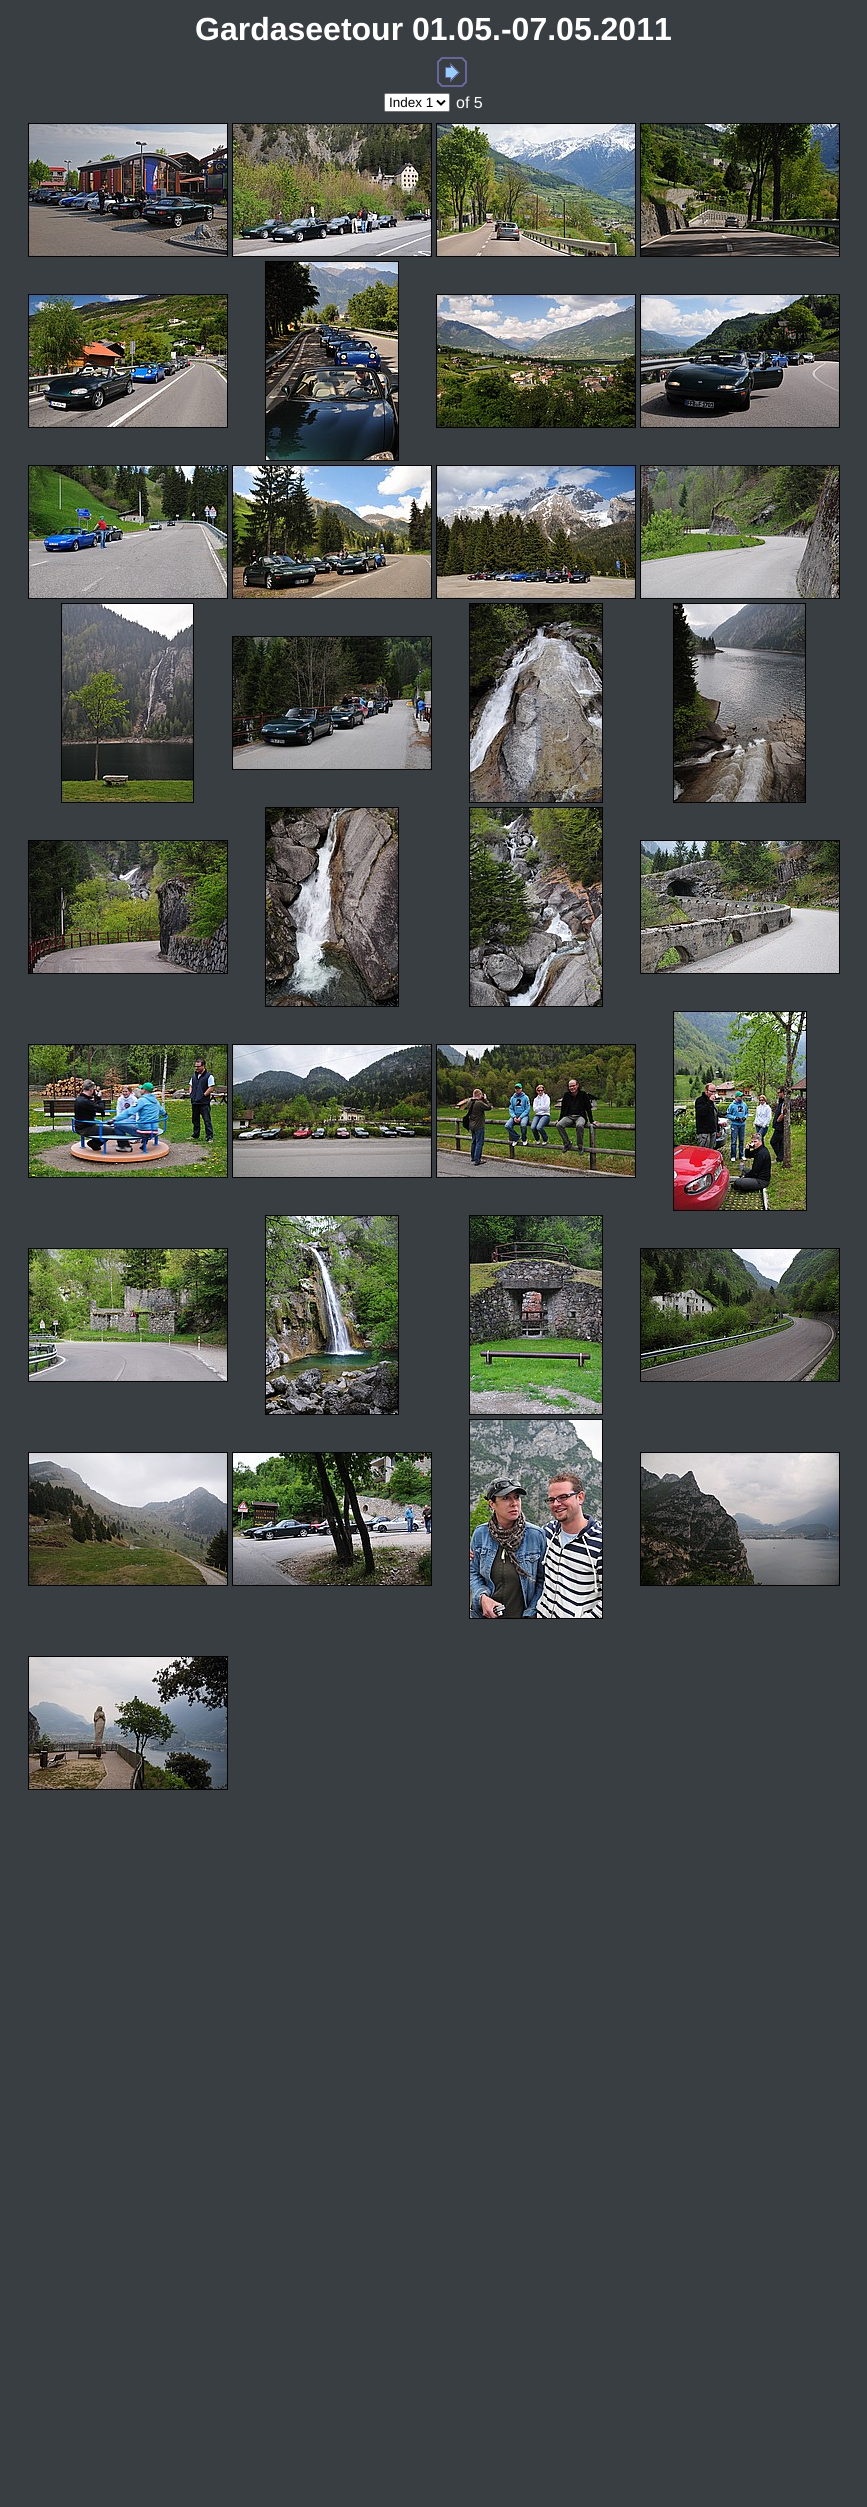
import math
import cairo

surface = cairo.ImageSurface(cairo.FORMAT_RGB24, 867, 2507)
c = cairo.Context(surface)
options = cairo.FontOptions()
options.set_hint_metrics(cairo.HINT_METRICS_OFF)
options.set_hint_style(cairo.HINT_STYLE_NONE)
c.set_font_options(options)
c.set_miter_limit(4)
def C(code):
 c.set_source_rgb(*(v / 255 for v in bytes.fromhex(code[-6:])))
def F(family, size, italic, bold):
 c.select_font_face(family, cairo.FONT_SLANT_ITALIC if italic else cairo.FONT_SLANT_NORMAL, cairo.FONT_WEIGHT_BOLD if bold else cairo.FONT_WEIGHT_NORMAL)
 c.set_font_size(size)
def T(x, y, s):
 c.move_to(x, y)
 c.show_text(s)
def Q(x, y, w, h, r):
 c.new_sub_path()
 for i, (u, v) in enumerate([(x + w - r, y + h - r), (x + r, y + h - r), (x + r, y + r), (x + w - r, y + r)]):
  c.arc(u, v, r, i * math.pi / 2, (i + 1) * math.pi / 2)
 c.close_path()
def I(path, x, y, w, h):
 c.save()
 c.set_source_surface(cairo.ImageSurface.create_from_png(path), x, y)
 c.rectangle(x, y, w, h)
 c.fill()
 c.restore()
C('383e42')
c.paint()
F('Liberation Sans',32,0,1)
C('ffffff')
T(195,40,'Gardaseetour 01.05.-07.05.2011')
I('1.png',437,57,30,30)
Q(384.5,93.5,65,18,1.5)
c.fill_preserve()
C('767676')
c.set_line_width(1)
c.stroke()
c.new_path()
c.move_to(437,100.5)
c.line_to(441,104.5)
c.line_to(445,100.5)
C('000000')
c.set_line_width(2)
c.stroke()
F('Liberation Sans',13.5,0,0)
T(389,107,'Index 1')
F('Liberation Sans',16,0,0)
C('ffffff')
T(456,108,'of 5')
I('2.png',28,123,200,134)
I('3.png',232,123,200,134)
I('4.png',436,123,200,134)
I('5.png',640,123,200,134)
I('6.png',28,294,200,134)
I('7.png',265,261,134,200)
I('8.png',436,294,200,134)
I('9.png',640,294,200,134)
I('10.png',28,465,200,134)
I('11.png',232,465,200,134)
I('12.png',436,465,200,134)
I('13.png',640,465,200,134)
I('14.png',61,603,133,200)
I('15.png',232,636,200,134)
I('16.png',469,603,134,200)
I('17.png',673,603,133,200)
I('18.png',28,840,200,134)
I('19.png',265,807,134,200)
I('20.png',469,807,134,200)
I('21.png',640,840,200,134)
I('22.png',28,1044,200,134)
I('23.png',232,1044,200,134)
I('24.png',436,1044,200,134)
I('25.png',673,1011,134,200)
I('26.png',28,1248,200,134)
I('27.png',265,1215,134,200)
I('28.png',469,1215,134,200)
I('29.png',640,1248,200,134)
I('30.png',28,1452,200,134)
I('31.png',232,1452,200,134)
I('32.png',469,1419,134,200)
I('33.png',640,1452,200,134)
I('34.png',28,1656,200,134)
surface.write_to_png('o.png')
